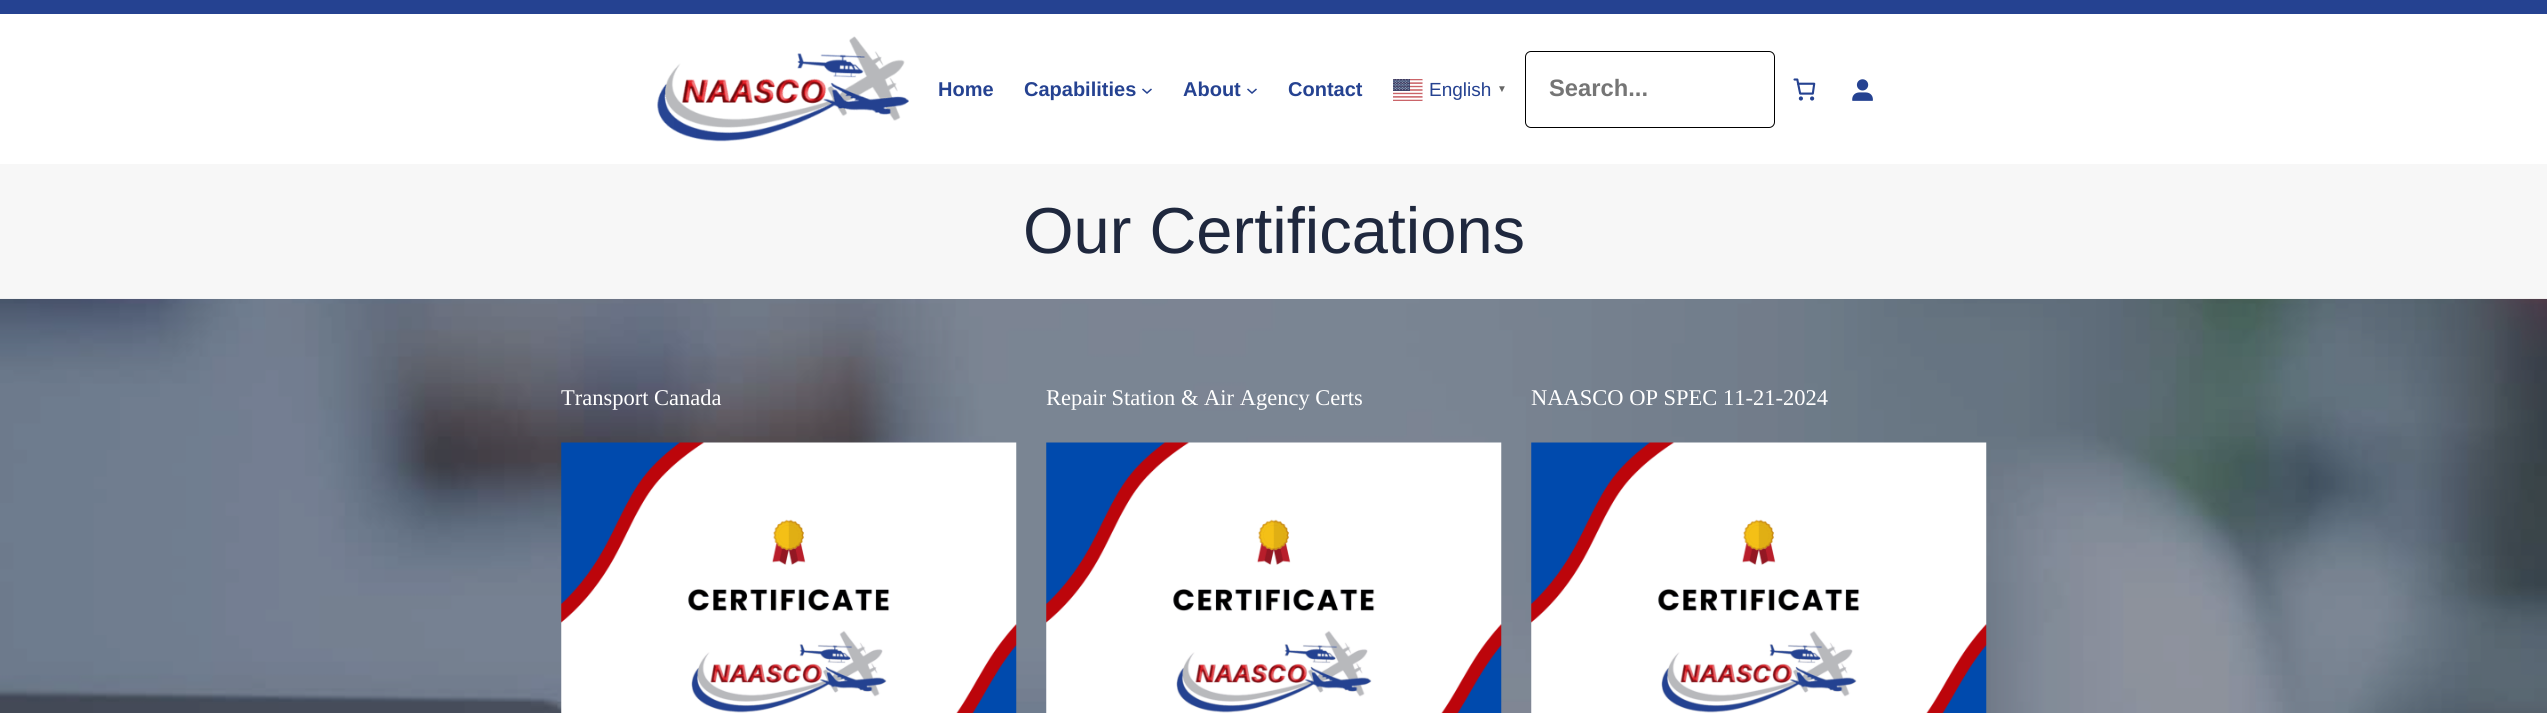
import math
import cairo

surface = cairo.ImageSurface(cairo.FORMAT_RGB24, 2547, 713)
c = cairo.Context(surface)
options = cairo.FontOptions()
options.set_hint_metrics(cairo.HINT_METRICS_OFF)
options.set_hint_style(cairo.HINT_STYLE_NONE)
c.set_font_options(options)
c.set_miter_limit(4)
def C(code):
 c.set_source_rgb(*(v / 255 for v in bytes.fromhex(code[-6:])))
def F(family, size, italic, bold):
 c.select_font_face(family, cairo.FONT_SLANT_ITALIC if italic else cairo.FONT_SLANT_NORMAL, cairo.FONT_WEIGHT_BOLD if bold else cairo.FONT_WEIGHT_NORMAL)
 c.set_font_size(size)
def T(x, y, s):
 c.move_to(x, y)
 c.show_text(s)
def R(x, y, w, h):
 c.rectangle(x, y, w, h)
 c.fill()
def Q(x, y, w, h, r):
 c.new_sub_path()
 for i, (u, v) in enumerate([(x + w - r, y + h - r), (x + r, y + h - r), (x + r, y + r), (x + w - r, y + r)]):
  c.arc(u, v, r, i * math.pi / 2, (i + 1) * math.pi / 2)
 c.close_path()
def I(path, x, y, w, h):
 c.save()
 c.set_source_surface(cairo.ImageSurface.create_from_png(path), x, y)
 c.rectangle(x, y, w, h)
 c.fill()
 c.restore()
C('ffffff')
c.paint()
C('254291')
R(0,0,2547,14)
I('1.png',657,36,252,106)
F('Liberation Sans',20,0,1)
T(938,96,'Home')
T(1024,96,'Capabilities')
c.new_path()
c.move_to(1142.5,89)
c.line_to(1147,93)
c.line_to(1151.5,89)
c.set_line_width(1.5)
c.stroke()
T(1183,96,'About')
c.new_path()
c.move_to(1247.5,89)
c.line_to(1252,93)
c.line_to(1256.5,89)
c.stroke()
T(1288,96,'Contact')
I('2.png',1393,79,30,22)
F('Liberation Sans',19,0,0)
T(1429,96,'English')
F('Liberation Sans',10,0,1)
C('666666')
T(1497,92,'▼')
Q(1525.5,51.5,249,76,5.5)
C('000000')
c.set_line_width(1)
c.stroke()
F('Liberation Sans',23.75,0,1)
C('757575')
T(1549,96,'Search...')
I('3.png',1793,78,23,23)
I('4.png',1852,79,21,22)
C('f7f7f7')
R(0,164,2547,135)
F('Liberation Sans',65,0,0)
C('1f283e')
T(1023,253,'Our Certifications')
I('5.png',0,298,2547,415)
F('Liberation Serif',22.5,0,0)
C('ffffff')
T(561,405,'Transport Canada')
I('6.png',561,442,456,271)
T(1046,405,'Repair Station & Air Agency Certs')
I('7.png',1046,442,456,271)
T(1531,405,'NAASCO OP SPEC 11-21-2024')
I('8.png',1531,442,456,271)
surface.write_to_png('o.png')
